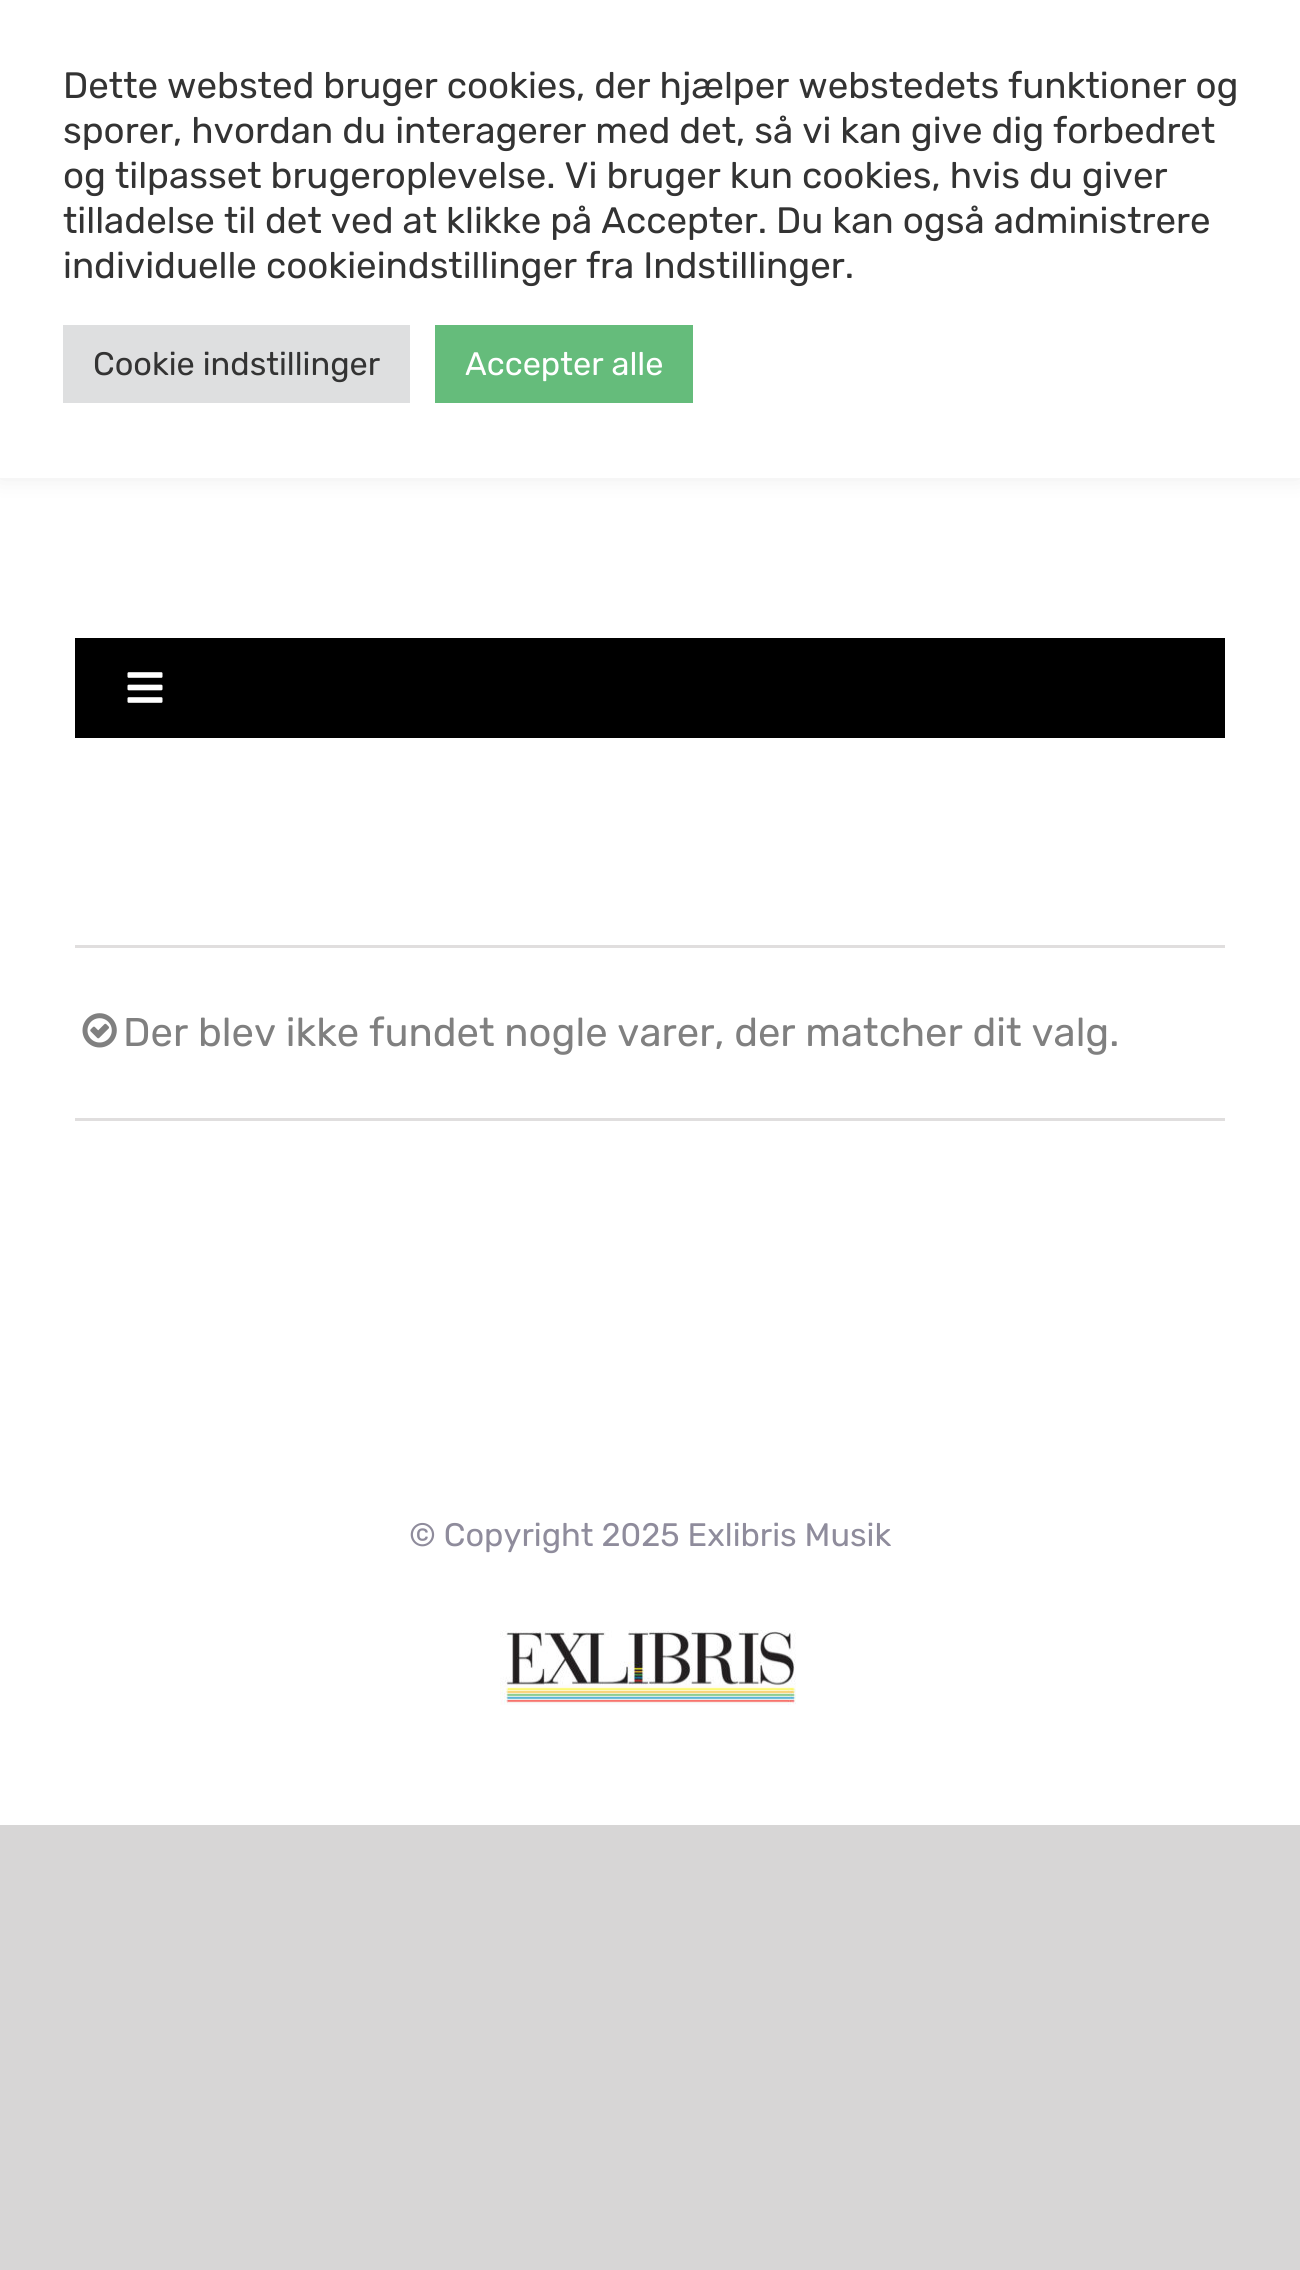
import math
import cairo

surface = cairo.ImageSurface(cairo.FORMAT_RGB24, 1300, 2270)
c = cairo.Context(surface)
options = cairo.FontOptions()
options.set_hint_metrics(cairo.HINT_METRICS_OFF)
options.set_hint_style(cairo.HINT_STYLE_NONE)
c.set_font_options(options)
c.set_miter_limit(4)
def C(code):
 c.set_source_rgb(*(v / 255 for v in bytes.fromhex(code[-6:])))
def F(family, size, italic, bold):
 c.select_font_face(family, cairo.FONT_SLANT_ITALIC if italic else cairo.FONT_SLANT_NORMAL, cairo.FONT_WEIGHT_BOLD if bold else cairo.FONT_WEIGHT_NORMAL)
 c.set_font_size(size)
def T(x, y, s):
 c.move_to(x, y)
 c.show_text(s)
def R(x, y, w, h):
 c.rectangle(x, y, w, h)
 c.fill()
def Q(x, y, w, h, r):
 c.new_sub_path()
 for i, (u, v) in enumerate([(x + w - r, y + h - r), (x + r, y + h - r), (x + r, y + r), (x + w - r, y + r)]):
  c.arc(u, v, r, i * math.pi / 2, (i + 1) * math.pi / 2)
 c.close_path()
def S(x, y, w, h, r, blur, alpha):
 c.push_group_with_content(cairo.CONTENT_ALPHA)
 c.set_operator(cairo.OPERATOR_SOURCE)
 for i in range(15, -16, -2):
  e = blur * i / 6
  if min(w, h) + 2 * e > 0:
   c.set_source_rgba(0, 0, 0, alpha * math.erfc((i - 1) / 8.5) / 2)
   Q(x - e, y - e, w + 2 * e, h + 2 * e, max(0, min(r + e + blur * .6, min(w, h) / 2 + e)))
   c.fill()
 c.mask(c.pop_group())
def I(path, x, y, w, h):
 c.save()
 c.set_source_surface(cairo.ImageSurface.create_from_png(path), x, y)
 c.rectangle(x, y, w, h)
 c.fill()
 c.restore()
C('d7d6d6')
c.paint()
C('ffffff')
R(0,478,1300,1347)
C('acabab')
S(0,-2,1300,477,0,12.5,.3)
C('ffffff')
R(0,0,1300,478)
F('Rubik',36.7,0,0)
C('333333')
T(63,98,'Dette websted bruger cookies, der hjælper webstedets funktioner og')
T(63,143,'sporer, hvordan du interagerer med det, så vi kan give dig forbedret')
T(63,188,'og tilpasset brugeroplevelse. Vi bruger kun cookies, hvis du giver')
T(63,233,'tilladelse til det ved at klikke på Accepter. Du kan også administrere')
T(63,278,'individuelle cookieindstillinger fra Indstillinger.')
C('dedfe0')
R(63,325,347,78)
F('Rubik',32.5,0,0)
C('333333')
T(93,375,'Cookie indstillinger')
C('65bc7b')
R(435,325,258,78)
C('ffffff')
T(465,375,'Accepter alle')
C('000000')
R(75,638,1150,100)
I('1.png',127,672,36,31)
C('e0dede')
R(75,945,1150,3)
R(75,1118,1150,3)
I('2.png',82,1013,35,35)
F('Rubik',40,0,0)
C('808080')
T(123,1046,'Der blev ikke fundet nogle varer, der matcher dit valg.')
F('Rubik',32.5,0,0)
C('8f8c9c')
T(409,1546,'© Copyright 2025 Exlibris Musik')
I('3.png',500,1630,296,75)
surface.write_to_png('o.png')
